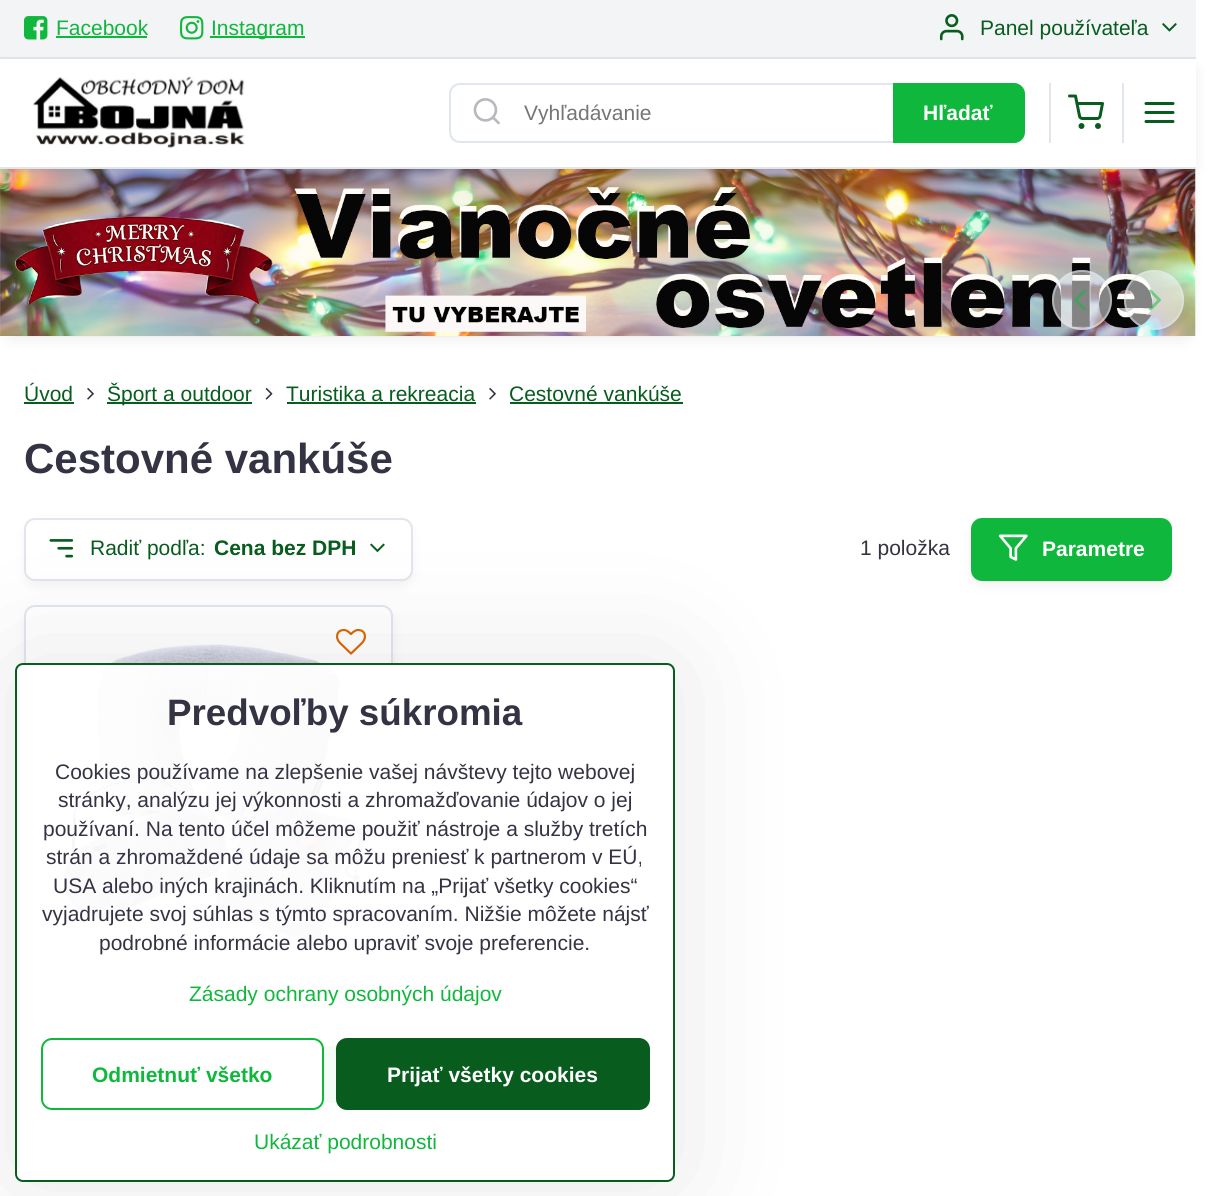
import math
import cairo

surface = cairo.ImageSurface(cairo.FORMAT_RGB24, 1218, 1196)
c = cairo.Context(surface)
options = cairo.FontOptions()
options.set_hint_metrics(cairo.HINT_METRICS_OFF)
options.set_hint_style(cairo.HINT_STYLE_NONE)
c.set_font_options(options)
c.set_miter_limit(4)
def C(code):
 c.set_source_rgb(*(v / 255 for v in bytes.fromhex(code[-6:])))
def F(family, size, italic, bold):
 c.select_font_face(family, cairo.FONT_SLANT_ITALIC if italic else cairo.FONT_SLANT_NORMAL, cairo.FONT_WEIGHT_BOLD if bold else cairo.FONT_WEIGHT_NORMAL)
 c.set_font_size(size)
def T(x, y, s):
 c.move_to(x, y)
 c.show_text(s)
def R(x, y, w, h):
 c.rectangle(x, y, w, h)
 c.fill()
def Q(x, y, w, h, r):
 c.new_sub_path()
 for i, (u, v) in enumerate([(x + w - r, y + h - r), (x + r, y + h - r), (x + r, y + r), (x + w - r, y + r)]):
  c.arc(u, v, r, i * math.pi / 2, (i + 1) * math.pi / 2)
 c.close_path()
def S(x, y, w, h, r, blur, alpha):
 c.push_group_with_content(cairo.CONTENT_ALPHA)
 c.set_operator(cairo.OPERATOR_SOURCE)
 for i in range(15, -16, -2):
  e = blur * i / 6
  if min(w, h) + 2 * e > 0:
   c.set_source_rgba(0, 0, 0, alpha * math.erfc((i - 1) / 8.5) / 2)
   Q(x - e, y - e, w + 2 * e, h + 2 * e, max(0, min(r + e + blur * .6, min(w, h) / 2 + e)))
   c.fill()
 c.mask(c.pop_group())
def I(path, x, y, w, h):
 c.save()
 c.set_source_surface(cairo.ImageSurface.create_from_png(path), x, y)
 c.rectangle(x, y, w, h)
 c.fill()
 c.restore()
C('ffffff')
c.paint()
C('f2f4f6')
R(0,0,1196,57)
C('e0e6ec')
R(0,57,1196,2)
I('1.png',24,16,24,24)
F('Liberation Sans',21,0,0)
C('0fb83c')
T(56,35,'Facebook')
R(56,36,91,2)
I('2.png',180,16,24,24)
R(210,36,95,2)
T(211,35,'Instagram')
I('3.png',939,14,25,27)
C('075c1e')
T(980,35,'Panel používateľa')
I('4.png',1162,23,15,9)
C('000014')
S(11,185,1174,147,0,10.5,.15)
I('9.png',0,169,1196,167)
S(6,71,1184,97,0,9,.15)
C('ffffff')
R(0,59,1196,108)
C('e0e6ec')
R(0,167,1196,2)
I('5.png',33,76,212,73)
Q(450,84,574,58,10)
c.stroke()
I('6.png',473,98,27,27)
C('757575')
T(524,120,'Vyhľadávanie')
C('0fb83c')
c.new_path()
c.move_to(893,83)
c.line_to(1014,83)
c.curve_to(1020,83,1025,88,1025,94)
c.line_to(1025,132)
c.curve_to(1025,138,1020,143,1014,143)
c.line_to(893,143)
c.close_path()
c.fill()
F('Liberation Sans',21,0,1)
C('ffffff')
T(923,120,'Hľadať')
C('e0e6ec')
R(1049,83,2,60)
I('7.png',1068,94,36,35)
R(1122,83,2,60)
I('8.png',1144,102,31,21)
c.set_source_rgba(1,1,1,0.5)
c.arc(1082,300,30,0,2 * math.pi)
c.fill()
c.arc(1082,300,29,0,2 * math.pi)
c.set_source_rgba(0.878,0.902,0.925,0.5)
c.stroke()
I('10.png',1074,289,12,22)
c.set_source_rgba(1,1,1,0.5)
c.arc(1154,300,30,0,2 * math.pi)
c.fill()
c.arc(1154,300,29,0,2 * math.pi)
c.set_source_rgba(0.878,0.902,0.925,0.5)
c.stroke()
I('11.png',1149,289,12,22)
F('Liberation Sans',21,0,0)
C('075c1e')
T(24,401,'Úvod')
R(24,402,50,2)
I('12.png',87,388,7,12)
R(107,402,145,2)
T(107,401,'Šport a outdoor')
I('13.png',265,388,8,12)
T(286,401,'Turistika a rekreacia')
R(287,402,189,2)
I('12.png',489,388,7,12)
T(509,401,'Cestovné vankúše')
R(510,402,173,2)
F('Liberation Sans',42,0,1)
C('333344')
T(24,473,'Cestovné vankúše')
C('000014')
S(35,534,367,42,0,10.5,.15)
C('ffffff')
Q(25,519,387,61,10)
c.fill_preserve()
C('e0e6ec')
c.stroke()
I('14.png',49,539,25,19)
F('Liberation Sans',21,0,0)
C('075c1e')
T(90,555,'Radiť podľa:')
F('Liberation Sans',21,0,1)
T(214,555,'Cena bez DPH')
I('15.png',370,543,15,9)
F('Liberation Sans',21,0,0)
C('333344')
T(860,555,'1 položka')
C('000014')
S(981,534,180,42,0,10.5,.15)
C('0fb83c')
Q(971,518,201,63,11)
c.fill()
I('16.png',998,534,30,27)
F('Liberation Sans',21,0,1)
C('ffffff')
T(1042,556,'Parametre')
c.save()
c.set_fill_rule(cairo.FILL_RULE_EVEN_ODD)
c.new_path()
c.move_to(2,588)
c.line_to(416,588)
c.line_to(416,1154)
c.line_to(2,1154)
c.close_path()
c.move_to(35,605)
c.line_to(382,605)
c.curve_to(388,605,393,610,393,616)
c.line_to(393,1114)
c.curve_to(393,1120,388,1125,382,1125)
c.line_to(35,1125)
c.curve_to(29,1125,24,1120,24,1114)
c.line_to(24,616)
c.curve_to(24,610,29,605,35,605)
c.close_path()
c.clip()
C('000014')
S(35,621,348,500,0,10.5,.15)
c.restore()
Q(25,606,367,518,10)
C('e0e6ec')
c.stroke()
I('18.png',58,644,307,300)
I('17.png',336,628,30,27)
C('0fb83c')
R(323,1046,14,57)
c.save()
c.set_fill_rule(cairo.FILL_RULE_EVEN_ODD)
c.new_path()
c.move_to(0,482)
c.line_to(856,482)
c.line_to(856,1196)
c.line_to(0,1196)
c.close_path()
c.move_to(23,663)
c.line_to(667,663)
c.curve_to(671.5,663,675,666.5,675,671)
c.line_to(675,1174)
c.curve_to(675,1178.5,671.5,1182,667,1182)
c.line_to(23,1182)
c.curve_to(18.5,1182,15,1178.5,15,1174)
c.line_to(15,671)
c.curve_to(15,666.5,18.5,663,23,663)
c.close_path()
c.clip()
C('000000')
S(15,663,660,519,8,60,.1)
c.restore()
c.set_source_rgba(1,1,1,0.95)
Q(16,664,658,517,7)
c.fill_preserve()
C('075c1e')
c.stroke()
F('Liberation Sans',36.75,0,1)
C('333344')
T(167,725,'Predvoľby súkromia')
F('Liberation Sans',21,0,0)
T(55,779,'Cookies používame na zlepšenie vašej návštevy tejto webovej')
T(58,807,'stránky, analýzu jej výkonnosti a zhromažďovanie údajov o jej')
T(43,836,'používaní. Na tento účel môžeme použiť nástroje a služby tretích')
T(46,864,'strán a zhromaždené údaje sa môžu preniesť k partnerom v EÚ,')
T(53,893,'USA alebo iných krajinách. Kliknutím na „Prijať všetky cookies“')
T(42,921,'vyjadrujete svoj súhlas s týmto spracovaním. Nižšie môžete nájsť')
T(99,950,'podrobné informácie alebo upraviť svoje preferencie.')
C('0fb83c')
T(189,1001,'Zásady ochrany osobných údajov')
C('ffffff')
Q(42,1039,281,70,10)
c.fill_preserve()
C('0fb83c')
c.stroke()
F('Liberation Sans',21,0,1)
T(92,1082,'Odmietnuť všetko')
C('075c1e')
Q(336,1038,314,72,11)
c.fill()
C('ffffff')
T(387,1082,'Prijať všetky cookies')
F('Liberation Sans',21,0,0)
C('0fb83c')
T(254,1149,'Ukázať podrobnosti')
surface.write_to_png('o.png')
